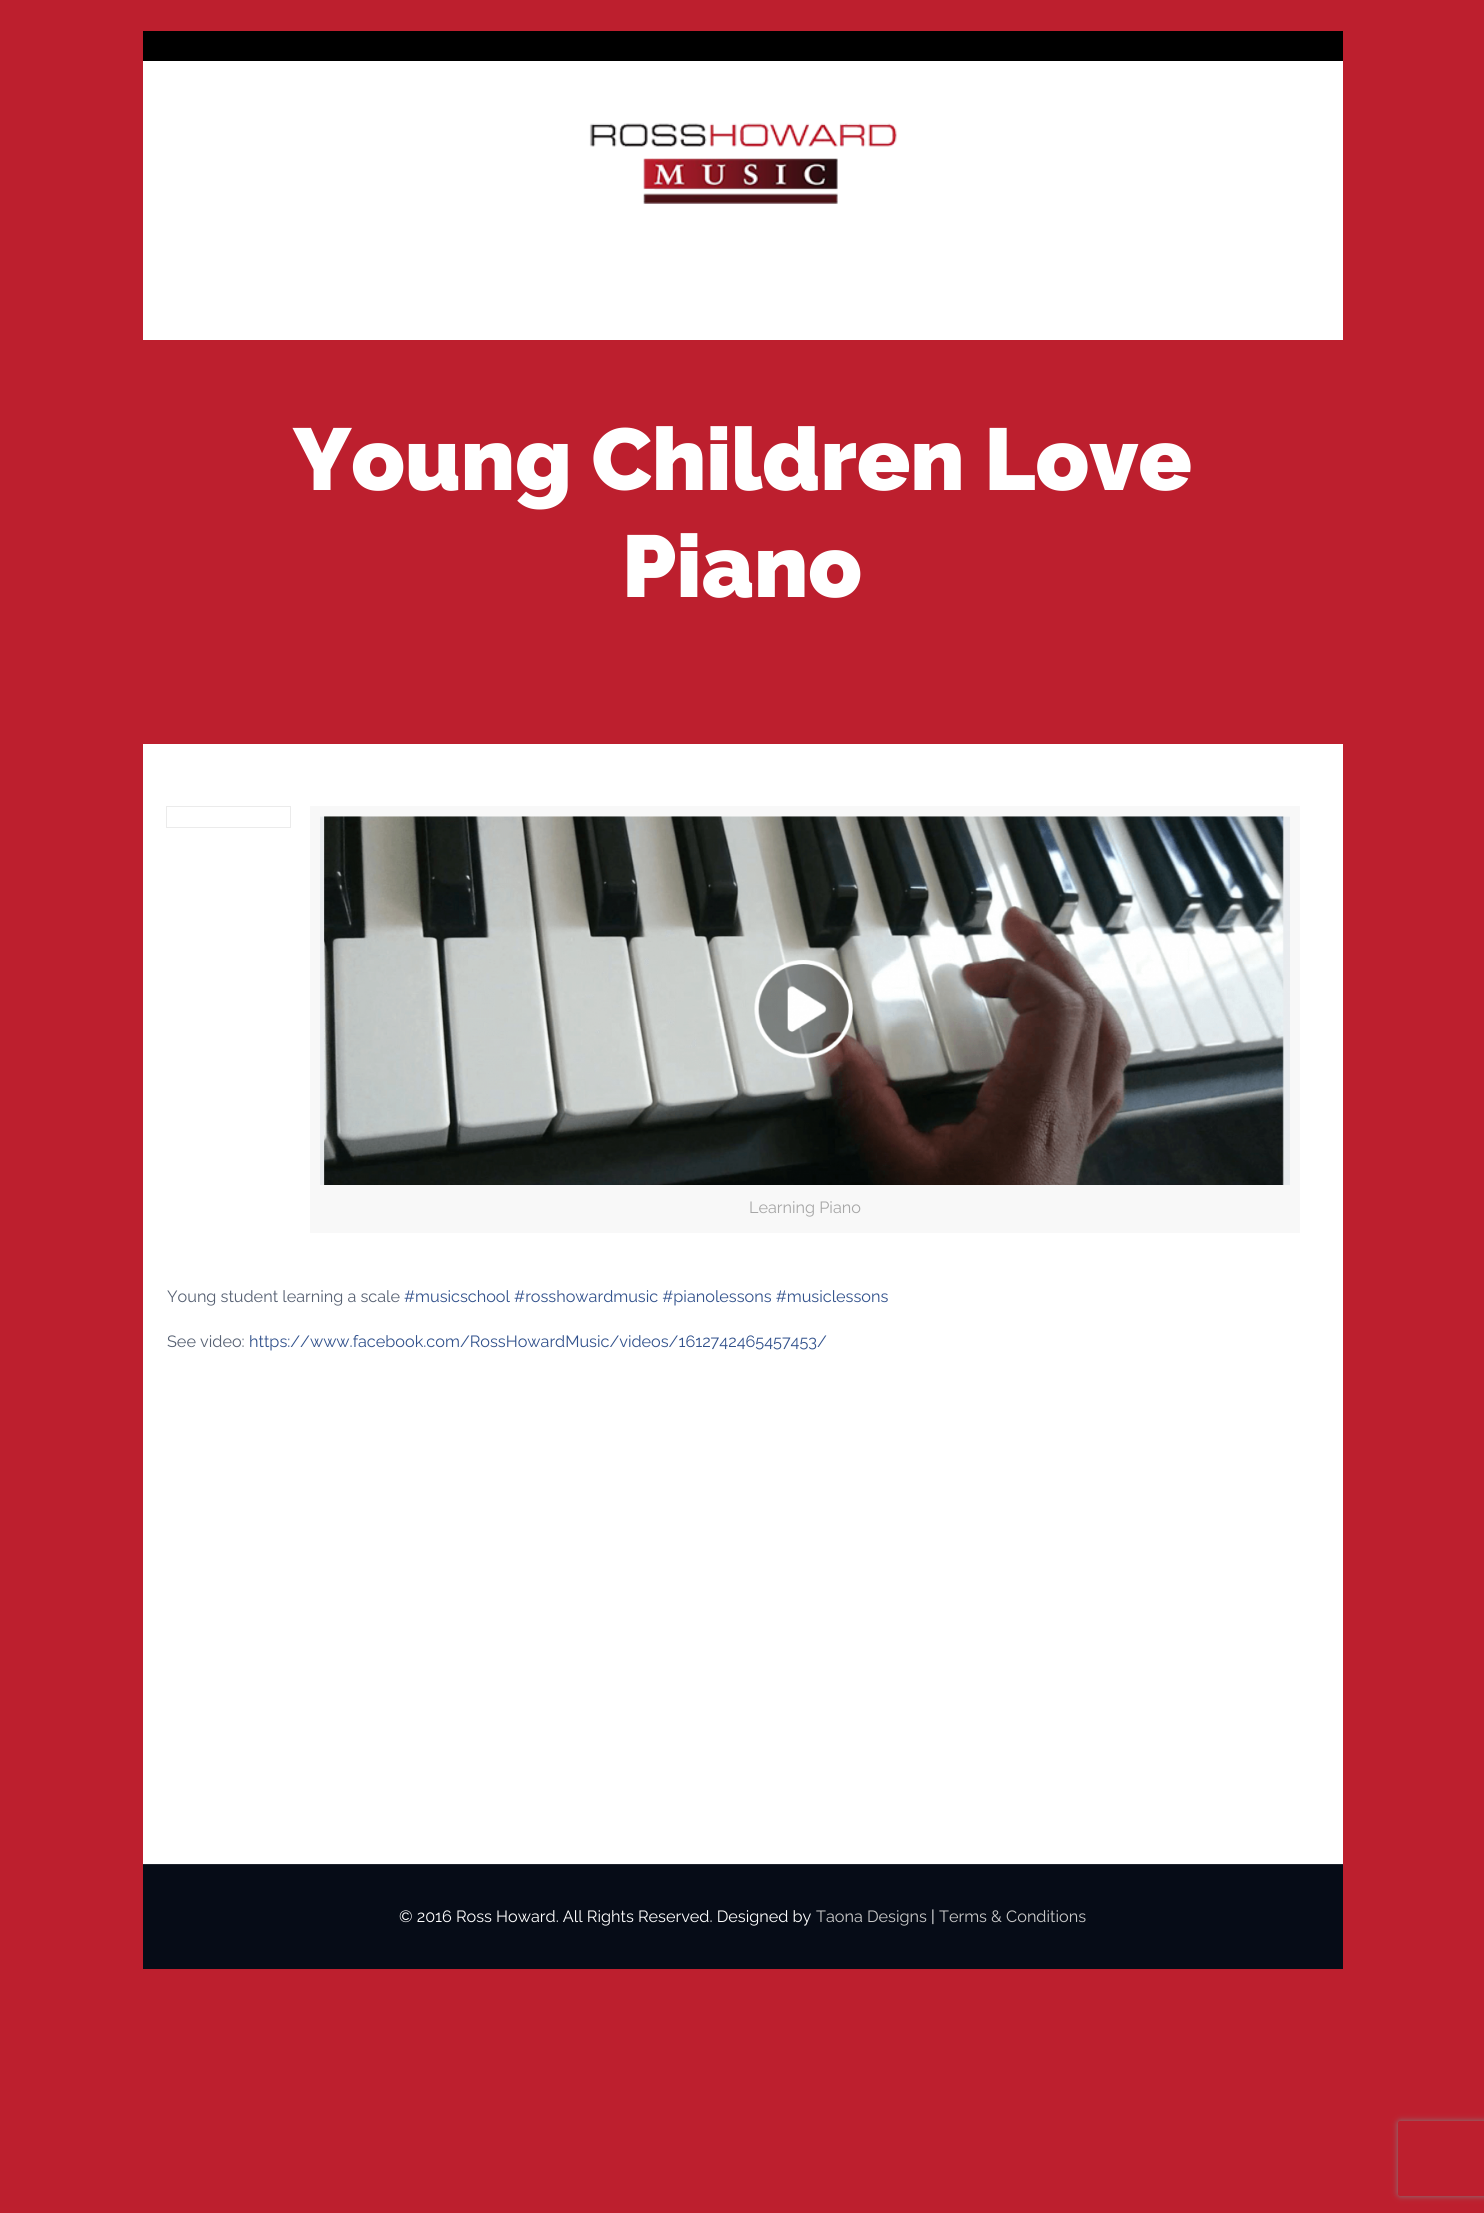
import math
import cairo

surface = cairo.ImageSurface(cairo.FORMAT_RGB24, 1484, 2213)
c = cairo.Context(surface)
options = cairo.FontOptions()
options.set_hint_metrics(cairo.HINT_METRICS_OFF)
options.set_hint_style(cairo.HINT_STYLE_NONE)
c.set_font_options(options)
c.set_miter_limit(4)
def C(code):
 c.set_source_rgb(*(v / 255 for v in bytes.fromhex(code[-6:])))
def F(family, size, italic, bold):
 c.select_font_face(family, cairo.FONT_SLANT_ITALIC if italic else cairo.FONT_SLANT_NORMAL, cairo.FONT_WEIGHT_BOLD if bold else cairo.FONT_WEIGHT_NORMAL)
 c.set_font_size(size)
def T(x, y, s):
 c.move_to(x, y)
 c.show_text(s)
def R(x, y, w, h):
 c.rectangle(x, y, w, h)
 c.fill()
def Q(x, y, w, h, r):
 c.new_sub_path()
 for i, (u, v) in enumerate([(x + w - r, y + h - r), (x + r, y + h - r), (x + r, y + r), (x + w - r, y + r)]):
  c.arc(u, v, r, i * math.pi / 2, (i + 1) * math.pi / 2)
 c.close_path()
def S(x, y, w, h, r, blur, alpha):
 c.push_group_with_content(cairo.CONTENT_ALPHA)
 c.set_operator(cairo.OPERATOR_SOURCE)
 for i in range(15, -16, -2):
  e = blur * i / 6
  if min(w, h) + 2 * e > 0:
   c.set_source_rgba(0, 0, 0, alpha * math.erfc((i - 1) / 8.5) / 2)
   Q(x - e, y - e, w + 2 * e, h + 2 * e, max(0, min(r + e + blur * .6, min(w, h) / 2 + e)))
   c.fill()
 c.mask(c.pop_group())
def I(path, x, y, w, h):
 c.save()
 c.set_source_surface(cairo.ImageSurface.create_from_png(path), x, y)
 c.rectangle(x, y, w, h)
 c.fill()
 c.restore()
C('bd1f2e')
c.paint()
C('000000')
R(143,31,1200,30)
C('ffffff')
R(143,61,1200,279)
I('1.png',589,123,308,81)
F('Raleway Black',87.5,0,0)
T(293,490,'Young Children Love')
T(622,597,'Piano')
R(143,744,1200,1120)
c.rectangle(166.5,806.5,124,21)
C('ebebeb')
c.set_line_width(1)
c.stroke()
c.rectangle(315,811,980,417)
C('f8f8f8')
c.set_line_width(10)
c.stroke()
I('2.png',320,816,970,369)
R(320,1185,970,38)
F('Raleway',16.25,0,0)
C('a6a6a6')
T(749,1213,'Learning Piano')
C('576173')
T(167,1302,'Young student learning a scale')
C('31518c')
T(404,1302,'#musicschool #rosshowardmusic #pianolessons #musiclessons')
C('576173')
T(167,1347,'See video:')
C('31518c')
T(249,1347,'https://www.facebook.com/RossHowardMusic/videos/1612742465457453/')
C('060c17')
R(143,1865,1200,104)
C('1f242e')
R(143,1864,1200,1)
C('ffffff')
T(399,1922,'© 2016 Ross Howard. All Rights Reserved. Designed by')
C('c9c9c9')
T(816,1922,'Taona Designs')
C('ffffff')
T(931,1922,'|')
C('c9c9c9')
T(939,1922,'Terms & Conditions')
c.save()
c.set_fill_rule(cairo.FILL_RULE_EVEN_ODD)
c.new_path()
c.move_to(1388,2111)
c.line_to(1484,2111)
c.line_to(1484,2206)
c.line_to(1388,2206)
c.close_path()
c.move_to(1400.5,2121)
c.line_to(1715.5,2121)
c.curve_to(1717,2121,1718,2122,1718,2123.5)
c.line_to(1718,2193.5)
c.curve_to(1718,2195,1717,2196,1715.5,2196)
c.line_to(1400.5,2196)
c.curve_to(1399,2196,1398,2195,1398,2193.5)
c.line_to(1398,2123.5)
c.curve_to(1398,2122,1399,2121,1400.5,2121)
c.close_path()
c.clip()
C('808080')
S(1398,2121,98,75,2.5,3,1)
c.restore()
surface.write_to_png('o.png')
